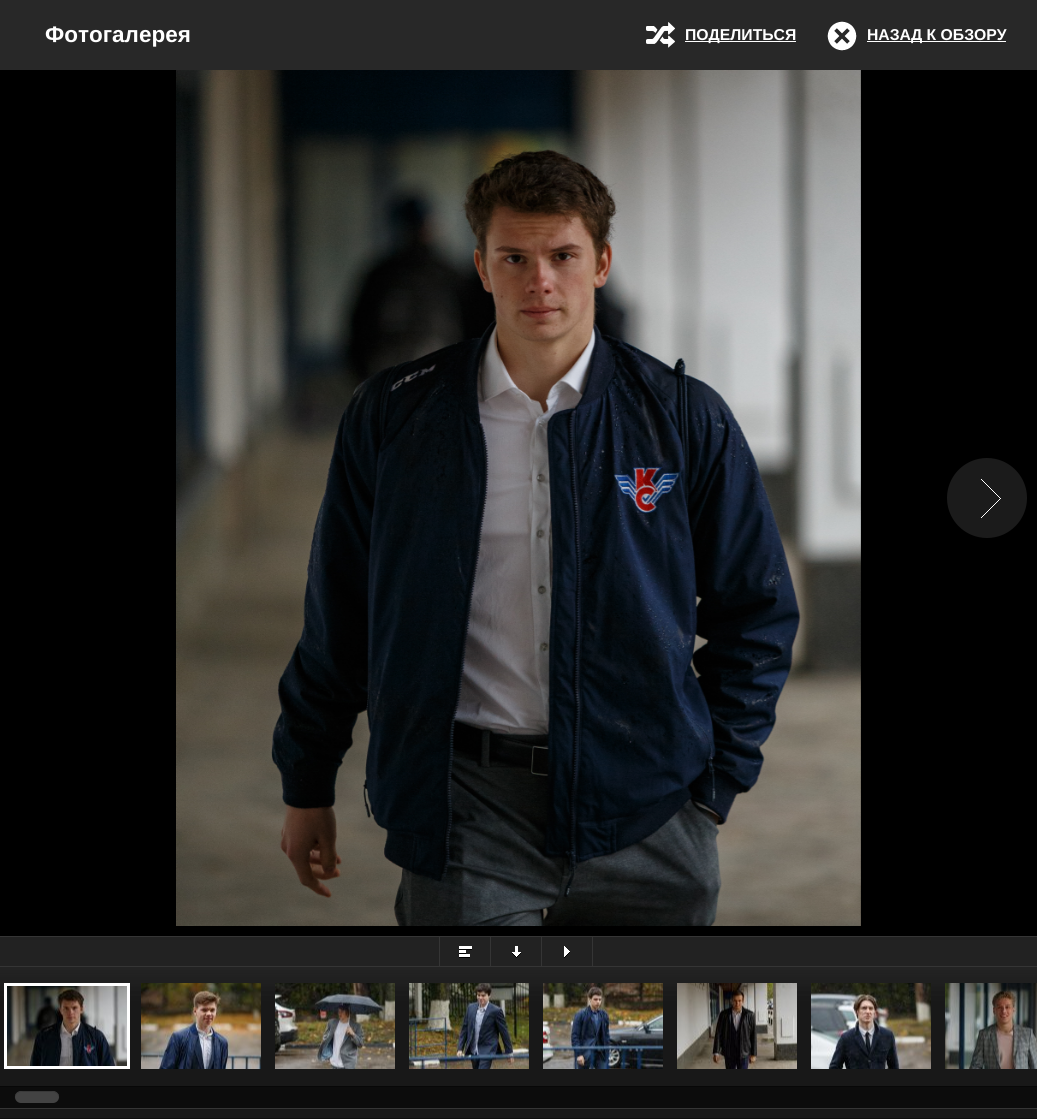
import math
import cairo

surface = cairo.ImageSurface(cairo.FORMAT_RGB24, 1037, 1119)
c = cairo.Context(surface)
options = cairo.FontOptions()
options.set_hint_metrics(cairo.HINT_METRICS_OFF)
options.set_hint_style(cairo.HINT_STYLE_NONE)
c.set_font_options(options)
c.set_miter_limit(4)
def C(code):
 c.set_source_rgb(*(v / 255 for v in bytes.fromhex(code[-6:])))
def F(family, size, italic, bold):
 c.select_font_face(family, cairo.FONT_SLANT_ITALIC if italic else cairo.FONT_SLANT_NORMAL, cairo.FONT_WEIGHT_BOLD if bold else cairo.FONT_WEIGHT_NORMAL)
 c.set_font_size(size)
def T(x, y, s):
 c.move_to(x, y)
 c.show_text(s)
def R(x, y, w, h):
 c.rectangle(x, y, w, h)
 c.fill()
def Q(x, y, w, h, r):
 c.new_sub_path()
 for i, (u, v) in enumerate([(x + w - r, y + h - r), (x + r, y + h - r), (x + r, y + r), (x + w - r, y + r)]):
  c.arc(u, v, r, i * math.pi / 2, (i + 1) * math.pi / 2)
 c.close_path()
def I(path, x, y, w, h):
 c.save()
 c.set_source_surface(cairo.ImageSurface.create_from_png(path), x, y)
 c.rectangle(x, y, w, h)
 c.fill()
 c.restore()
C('000000')
c.paint()
C('282828')
R(0,0,1037,70)
F('Liberation Sans',22.5,0,1)
C('ffffff')
T(45,42,'Фотогалерея')
I('1.png',646,22,29,26)
R(685,41,111,1)
F('Liberation Sans',15.75,0,1)
T(685,40,'ПОДЕЛИТЬСЯ')
I('2.png',827,21,30,30)
R(867,41,139,1)
T(867,40,'НАЗАД К ОБЗОРУ')
I('3.png',176,70,685,856)
I('4.png',947,458,80,80)
C('222222')
R(0,937,1037,29)
C('353535')
R(0,936,1037,1)
c.rectangle(439.5,936.5,51,31)
c.set_line_width(1)
c.stroke()
I('5.png',459,946,13,12)
c.rectangle(490.5,936.5,51,31)
c.stroke()
I('6.png',512,946,9,12)
c.rectangle(541.5,936.5,51,31)
c.stroke()
I('7.png',564,946,6,12)
I('8.png',0,966,1037,153)
I('9.png',7,986,120,80)
c.rectangle(5.5,984.5,123,83)
C('ffffff')
c.set_line_width(3)
c.stroke()
I('10.png',141,983,120,86)
I('11.png',275,983,120,86)
I('12.png',409,983,120,86)
I('13.png',543,983,120,86)
I('14.png',677,983,120,86)
I('15.png',811,983,120,86)
I('16.png',945,983,92,86)
C('434343')
Q(15,1091,44,12,6)
c.fill()
C('383838')
c.new_path()
c.move_to(21,1092)
c.line_to(53,1092)
c.curve_to(56,1092,59,1095,59,1098)
c.curve_to(60,1091,52,1091,48,1091)
c.line_to(26,1091)
c.curve_to(22,1091,14,1091,15,1098)
c.curve_to(15,1095,18,1092,21,1092)
c.close_path()
c.fill()
surface.write_to_png('o.png')
